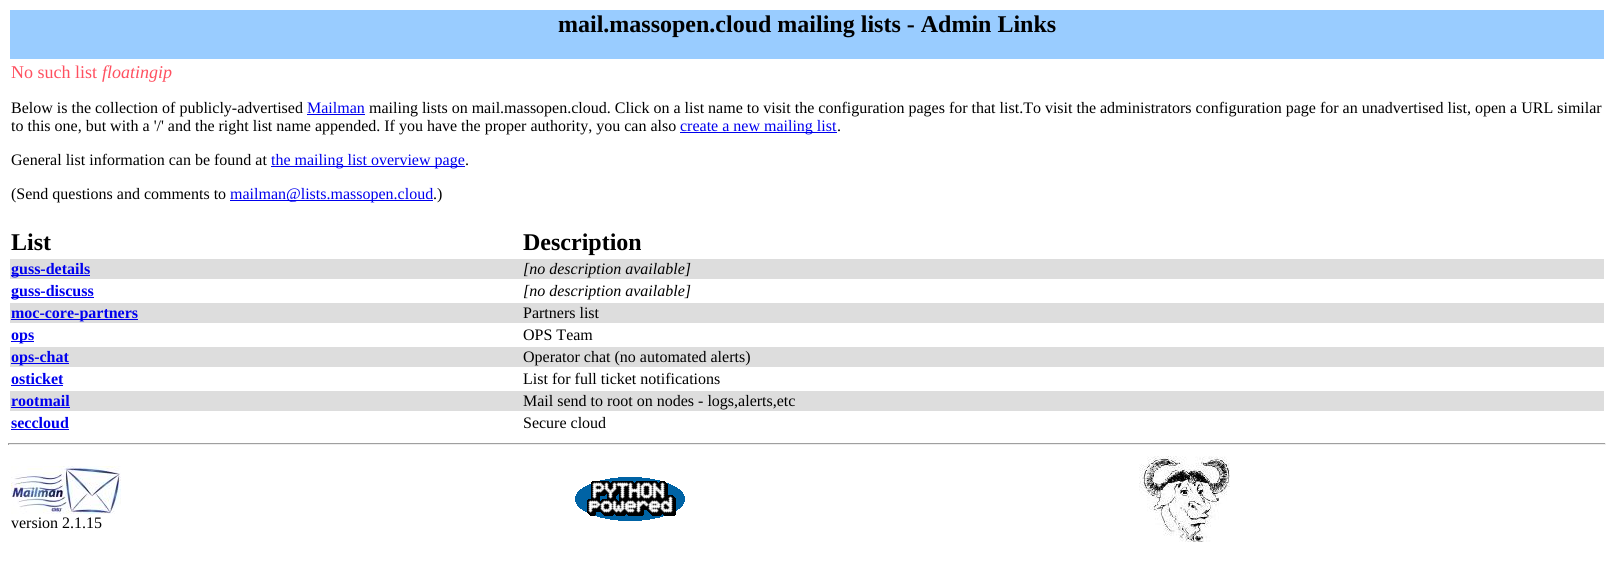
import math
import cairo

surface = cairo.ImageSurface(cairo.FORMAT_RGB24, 1614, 561)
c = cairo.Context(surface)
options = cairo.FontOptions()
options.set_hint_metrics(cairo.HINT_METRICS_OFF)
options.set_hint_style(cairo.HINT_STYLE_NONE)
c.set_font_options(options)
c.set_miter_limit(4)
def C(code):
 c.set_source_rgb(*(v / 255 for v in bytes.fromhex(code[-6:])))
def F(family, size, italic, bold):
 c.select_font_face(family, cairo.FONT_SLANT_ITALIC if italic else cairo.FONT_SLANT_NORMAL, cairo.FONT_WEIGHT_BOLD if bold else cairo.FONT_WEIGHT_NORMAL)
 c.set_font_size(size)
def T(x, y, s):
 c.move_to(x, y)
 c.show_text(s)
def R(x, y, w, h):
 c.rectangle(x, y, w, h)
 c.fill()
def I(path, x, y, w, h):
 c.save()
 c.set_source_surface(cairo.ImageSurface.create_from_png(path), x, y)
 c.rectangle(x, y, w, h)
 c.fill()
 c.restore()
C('ffffff')
c.paint()
C('99ccff')
R(10,10,1594,49)
F('Liberation Serif',24,0,1)
C('000000')
T(558,32,'mail.massopen.cloud mailing lists - Admin Links')
F('Liberation Serif',18,0,0)
C('ff5060')
T(11,78,'No such list')
F('Liberation Serif',18,1,0)
T(102,78,'floatingip')
F('Liberation Serif',16,0,0)
C('000000')
T(11,113,'Below is the collection of publicly-advertised')
C('0000ee')
T(307,113,'Mailman')
R(307,114,58,1)
C('000000')
T(369,113,'mailing lists on mail.massopen.cloud. Click on a list name to visit the configuration pages for that list.To visit the administrators configuration page for an unadvertised list, open a URL similar')
T(11,131,'to this one, but with a \'/\' and the right list name appended. If you have the proper authority, you can also')
C('0000ee')
R(680,132,157,1)
T(680,131,'create a new mailing list')
C('000000')
T(837,131,'.')
T(11,165,'General list information can be found at')
C('0000ee')
R(271,166,194,1)
T(271,165,'the mailing list overview page')
C('000000')
T(465,165,'.')
T(11,199,'(Send questions and comments to')
C('0000ee')
R(230,200,203,1)
T(230,199,'mailman@lists.massopen.cloud')
C('000000')
T(433,199,'.)')
F('Liberation Serif',24,0,1)
T(11,250,'List')
T(523,250,'Description')
C('dddddd')
R(10,259,1594,20)
C('0000ee')
R(11,275,79,1)
F('Liberation Serif',16,0,1)
T(11,274,'guss-details')
F('Liberation Serif',16,1,0)
C('000000')
T(523,274,'[no description available]')
C('0000ee')
R(11,297,83,1)
F('Liberation Serif',16,0,1)
T(11,296,'guss-discuss')
F('Liberation Serif',16,1,0)
C('000000')
T(523,296,'[no description available]')
C('dddddd')
R(10,303,1594,20)
C('0000ee')
R(11,319,127,1)
F('Liberation Serif',16,0,1)
T(11,318,'moc-core-partners')
F('Liberation Serif',16,0,0)
C('000000')
T(523,318,'Partners list')
C('0000ee')
R(11,341,23,1)
F('Liberation Serif',16,0,1)
T(11,340,'ops')
F('Liberation Serif',16,0,0)
C('000000')
T(523,340,'OPS Team')
C('dddddd')
R(10,347,1594,20)
C('0000ee')
R(11,363,58,1)
F('Liberation Serif',16,0,1)
T(11,362,'ops-chat')
F('Liberation Serif',16,0,0)
C('000000')
T(523,362,'Operator chat (no automated alerts)')
F('Liberation Serif',16,0,1)
C('0000ee')
T(11,384,'osticket')
R(11,385,52,1)
F('Liberation Serif',16,0,0)
C('000000')
T(523,384,'List for full ticket notifications')
C('dddddd')
R(10,391,1594,20)
F('Liberation Serif',16,0,1)
C('0000ee')
T(11,406,'rootmail')
R(11,407,59,1)
F('Liberation Serif',16,0,0)
C('000000')
T(523,406,'Mail send to root on nodes - logs,alerts,etc')
F('Liberation Serif',16,0,1)
C('0000ee')
T(11,428,'seccloud')
R(11,429,58,1)
F('Liberation Serif',16,0,0)
C('000000')
T(523,428,'Secure cloud')
C('9f9f9f')
R(8,443,1598,1)
C('eeeeee')
R(1605,443,1,2)
R(8,444,1598,1)
C('9f9f9f')
R(8,443,1,2)
I('1.png',575,477,110,44)
I('2.png',1139,456,91,86)
I('3.png',11,466,110,48)
C('000000')
T(11,528,'version 2.1.15')
surface.write_to_png('o.png')
